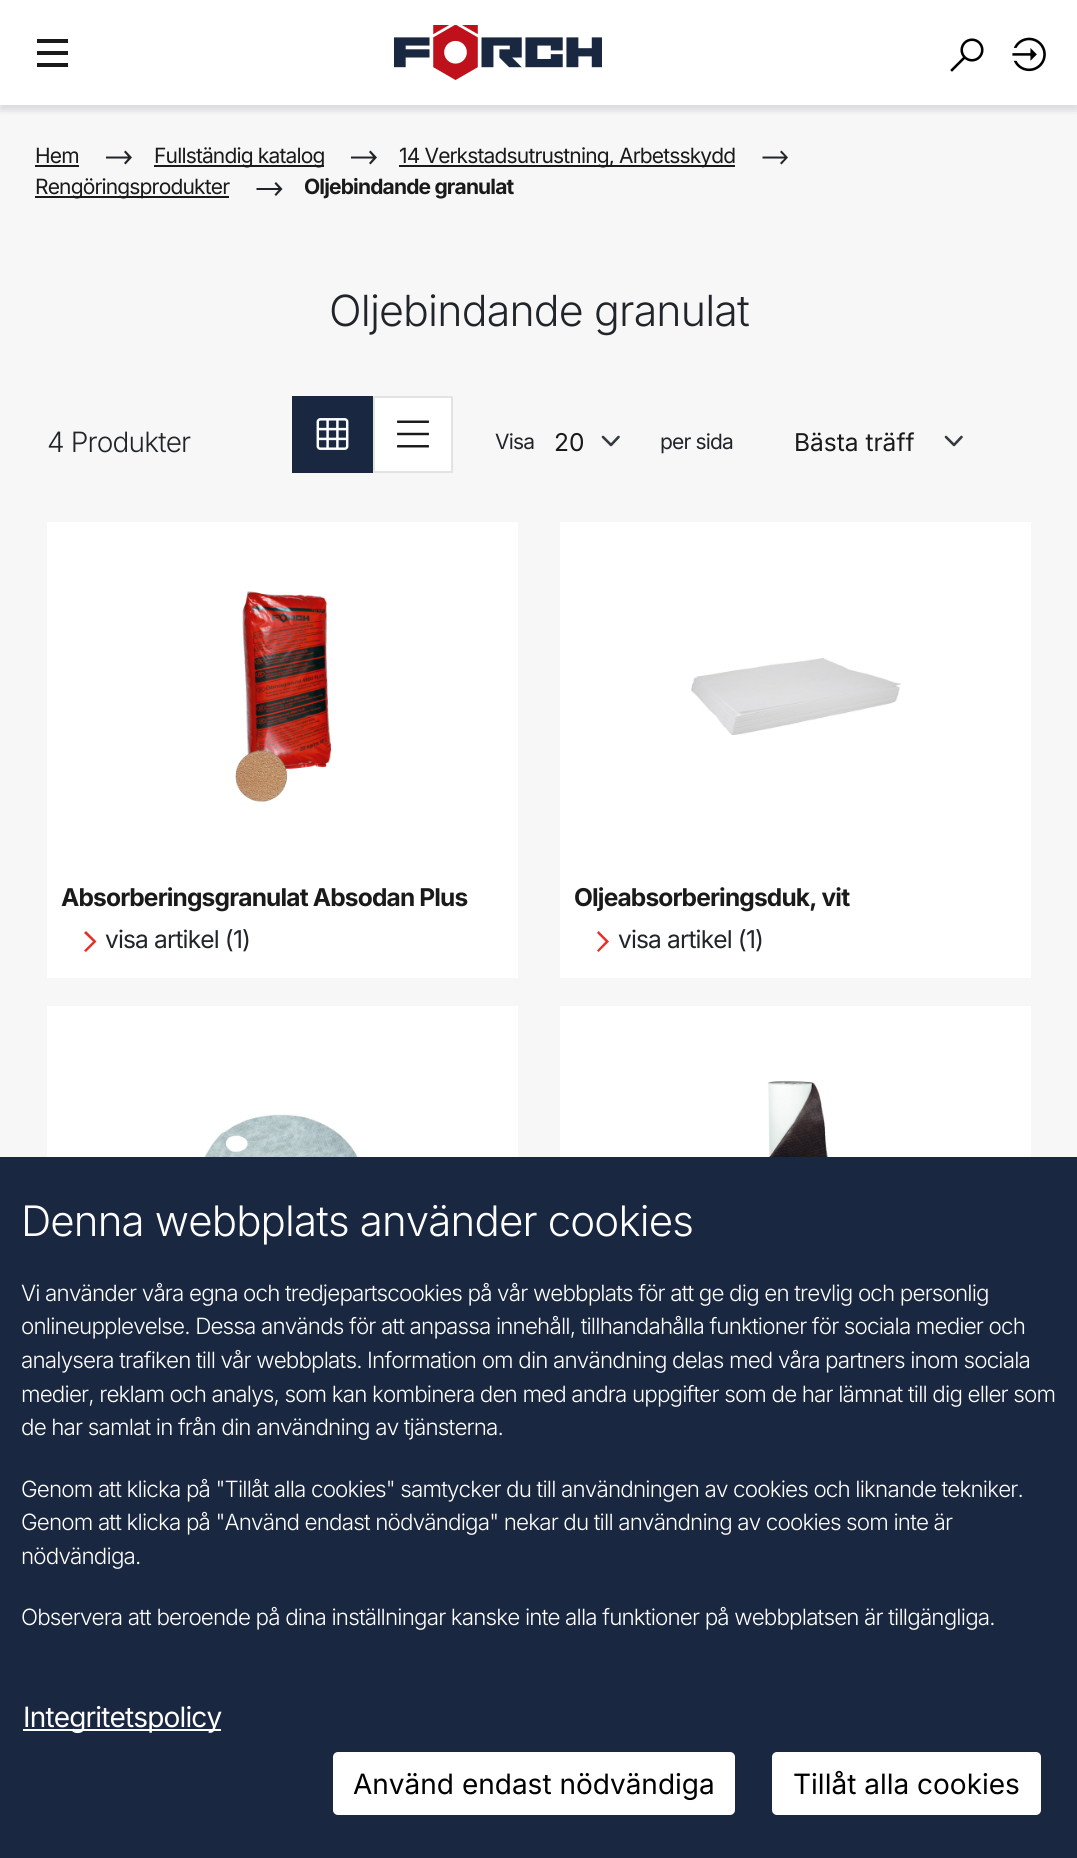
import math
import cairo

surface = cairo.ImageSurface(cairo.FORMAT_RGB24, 1077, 1858)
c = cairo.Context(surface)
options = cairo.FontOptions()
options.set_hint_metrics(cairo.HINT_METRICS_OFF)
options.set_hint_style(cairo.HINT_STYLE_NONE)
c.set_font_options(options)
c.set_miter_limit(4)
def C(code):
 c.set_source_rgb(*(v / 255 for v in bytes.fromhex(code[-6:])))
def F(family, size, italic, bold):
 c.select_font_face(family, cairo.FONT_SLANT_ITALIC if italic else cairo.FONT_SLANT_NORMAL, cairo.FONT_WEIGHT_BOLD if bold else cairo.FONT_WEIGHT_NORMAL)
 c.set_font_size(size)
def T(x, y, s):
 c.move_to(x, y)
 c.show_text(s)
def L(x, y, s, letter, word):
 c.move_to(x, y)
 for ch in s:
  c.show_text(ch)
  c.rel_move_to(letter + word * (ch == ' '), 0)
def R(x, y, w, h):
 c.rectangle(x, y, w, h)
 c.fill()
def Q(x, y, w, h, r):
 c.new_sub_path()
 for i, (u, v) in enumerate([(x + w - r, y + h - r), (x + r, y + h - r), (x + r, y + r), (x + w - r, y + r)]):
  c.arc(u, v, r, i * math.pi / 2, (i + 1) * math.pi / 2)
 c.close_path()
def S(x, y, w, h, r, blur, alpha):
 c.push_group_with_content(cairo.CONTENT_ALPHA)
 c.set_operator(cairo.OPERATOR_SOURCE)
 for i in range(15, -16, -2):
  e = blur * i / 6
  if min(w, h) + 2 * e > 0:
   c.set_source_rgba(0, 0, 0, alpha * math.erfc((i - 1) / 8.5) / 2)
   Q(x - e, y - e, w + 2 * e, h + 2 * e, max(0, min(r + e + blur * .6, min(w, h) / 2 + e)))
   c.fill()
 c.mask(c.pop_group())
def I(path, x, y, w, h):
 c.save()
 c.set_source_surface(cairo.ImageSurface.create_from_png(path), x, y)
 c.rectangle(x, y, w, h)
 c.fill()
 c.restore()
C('f8f7f8')
c.paint()
C('ffffff')
R(0,0,1077,105)
C('1a1a1a')
R(37,39,31,4)
R(37,51,31,4)
R(37,63,31,4)
I('1.png',394,25,208,55)
I('2.png',950,38,34,34)
I('3.png',1012,37,34,35)
c.save()
c.rectangle(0,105,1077,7)
c.clip()
C('16253f')
S(0,5,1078,105,0,5,.06)
c.restore()
c.save()
c.rectangle(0,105,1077,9)
c.clip()
C('16253f')
S(0,5,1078,105,0,5,.1)
c.restore()
F('Inter',21,0,0)
L(35,163,'Hem',-.84,0)
R(35,165,44,2)
C('212529')
c.set_fill_rule(cairo.FILL_RULE_EVEN_ODD)
c.new_path()
c.move_to(125.5,150.5)
c.line_to(124,152)
c.line_to(128,156.5)
c.line_to(106,156.5)
c.line_to(106,158.5)
c.line_to(128,158.5)
c.line_to(124,163)
c.line_to(125.5,164.5)
c.line_to(132,157.5)
c.close_path()
c.fill()
C('1a1a1a')
R(154,165,170,2)
L(154,163,'Fullständig katalog',-.84,0)
C('212529')
c.new_path()
c.move_to(370.5,150.5)
c.line_to(369,152)
c.line_to(373,156.5)
c.line_to(351,156.5)
c.line_to(351,158.5)
c.line_to(373,158.5)
c.line_to(369,163)
c.line_to(370.5,164.5)
c.line_to(377,157.5)
c.close_path()
c.fill()
C('1a1a1a')
R(399,165,336,2)
L(399,163,'14 Verkstadsutrustning, Arbetsskydd',-.84,0)
C('212529')
c.new_path()
c.move_to(781.5,150.5)
c.line_to(780,152)
c.line_to(784.5,156.5)
c.line_to(762.5,156.5)
c.line_to(762.5,158.5)
c.line_to(784.5,158.5)
c.line_to(780,163)
c.line_to(781.5,164.5)
c.line_to(788,157.5)
c.close_path()
c.fill()
C('1a1a1a')
R(35,196,194,2)
L(35,194,'Rengöringsprodukter',-.84,0)
C('212529')
c.new_path()
c.move_to(276,182)
c.line_to(274.5,183.5)
c.line_to(278.5,188)
c.line_to(256.5,188)
c.line_to(256.5,190)
c.line_to(278.5,190)
c.line_to(274.5,194.5)
c.line_to(276,196)
c.line_to(282.5,189)
c.close_path()
c.fill()
F('Inter',21,0,1)
C('1a1a1a')
L(304,194,'Oljebindande granulat',-.84,0)
F('Inter Light',42.9,0,0)
C('212529')
L(329,326,'Oljebindande granulat',-.84,0)
F('Inter Light',28,0,0)
L(47,452,'4 Produkter',-.84,0)
C('1a2740')
R(292,396,81,77)
I('4.png',316,418,33,32)
C('ffffff')
c.rectangle(374,397,78,75)
c.fill_preserve()
C('e3e3e3')
c.stroke()
I('5.png',397,420,32,28)
F('Inter',21,0,0)
C('212529')
L(495,449,'Visa',-.84,0)
c.new_path()
c.move_to(603,437)
c.line_to(611,445)
c.line_to(618.5,437)
C('343a40')
c.set_line_width(2.6)
c.set_line_cap(cairo.LINE_CAP_ROUND)
c.set_line_join(cairo.LINE_JOIN_ROUND)
c.stroke()
F('Inter',24.5,0,0)
C('1a1a1a')
T(554,451,'20')
F('Inter',21,0,0)
C('212529')
L(660,449,'per sida',-.84,0)
c.new_path()
c.move_to(946,437)
c.line_to(954,445)
c.line_to(961.5,437)
C('343a40')
c.stroke()
F('Inter',24.5,0,0)
C('1a1a1a')
T(794,451,'Bästa träff')
C('ffffff')
R(47,522,471,456)
I('6.png',235,591,97,211)
F('Inter',24.5,0,1)
C('1a1a1a')
L(61,906,'Absorberingsgranulat Absodan Plus',-.84,0)
C('e63027')
c.new_path()
c.move_to(84,950.5)
c.line_to(86,952)
c.line_to(96.5,941.5)
c.line_to(86,931)
c.line_to(84,933)
c.line_to(93,941.5)
c.close_path()
c.fill()
F('Inter',24.5,0,0)
C('212529')
L(105,948,'visa artikel (1)',-.84,0)
C('ffffff')
R(560,522,471,456)
I('7.png',691,658,211,77)
F('Inter',24.5,0,1)
C('1a1a1a')
L(574,906,'Oljeabsorberingsduk, vit',-.84,0)
C('e63027')
c.new_path()
c.move_to(597,950.5)
c.line_to(598.5,952)
c.line_to(609,941.5)
c.line_to(598.5,931)
c.line_to(597,933)
c.line_to(605.5,941.5)
c.close_path()
c.fill()
F('Inter',24.5,0,0)
C('212529')
L(618,948,'visa artikel (1)',-.84,0)
C('ffffff')
R(47,1006,471,151)
I('8.png',199,1114,165,43)
R(560,1006,471,151)
I('9.png',737,1080,119,77)
C('1a2740')
R(0,1157,1077,701)
F('Inter Light',42,0,0)
C('ffffff')
L(21,1236,'Denna webbplats använder cookies',-.84,0)
F('Inter Light',22.4,0,0)
L(21,1301,'Vi använder våra egna och tredjepartscookies på vår webbplats för att ge dig en trevlig och personlig',-.84,0)
L(21,1334,'onlineupplevelse. Dessa används för att anpassa innehåll, tillhandahålla funktioner för sociala medier och',-.84,0)
L(21,1368,'analysera trafiken till vår webbplats. Information om din användning delas med våra partners inom sociala',-.84,0)
L(21,1402,'medier, reklam och analys, som kan kombinera den med andra uppgifter som de har lämnat till dig eller som',-.84,0)
L(21,1435,'de har samlat in från din användning av tjänsterna.',-.84,0)
L(21,1497,'Genom att klicka på "Tillåt alla cookies" samtycker du till användningen av cookies och liknande tekniker.',-.84,0)
L(21,1530,'Genom att klicka på "Använd endast nödvändiga" nekar du till användning av cookies som inte är',-.84,0)
L(21,1564,'nödvändiga.',-.84,0)
L(21,1625,'Observera att beroende på dina inställningar kanske inte alla funktioner på webbplatsen är tillgängliga.',-.84,0)
R(23,1729,198,2)
F('Inter',28,0,0)
L(23,1727,'Integritetspolicy',-.84,0)
Q(332,1751,404,65,6)
c.fill_preserve()
C('1a2740')
c.set_line_width(2)
c.set_line_cap(cairo.LINE_CAP_BUTT)
c.set_line_join(cairo.LINE_JOIN_MITER)
c.stroke()
C('000000')
T(353,1794,'Använd endast nödvändiga')
C('ffffff')
Q(771,1751,271,65,6)
c.fill_preserve()
C('1a2740')
c.stroke()
C('000000')
T(793,1794,'Tillåt alla cookies')
surface.write_to_png('o.png')
